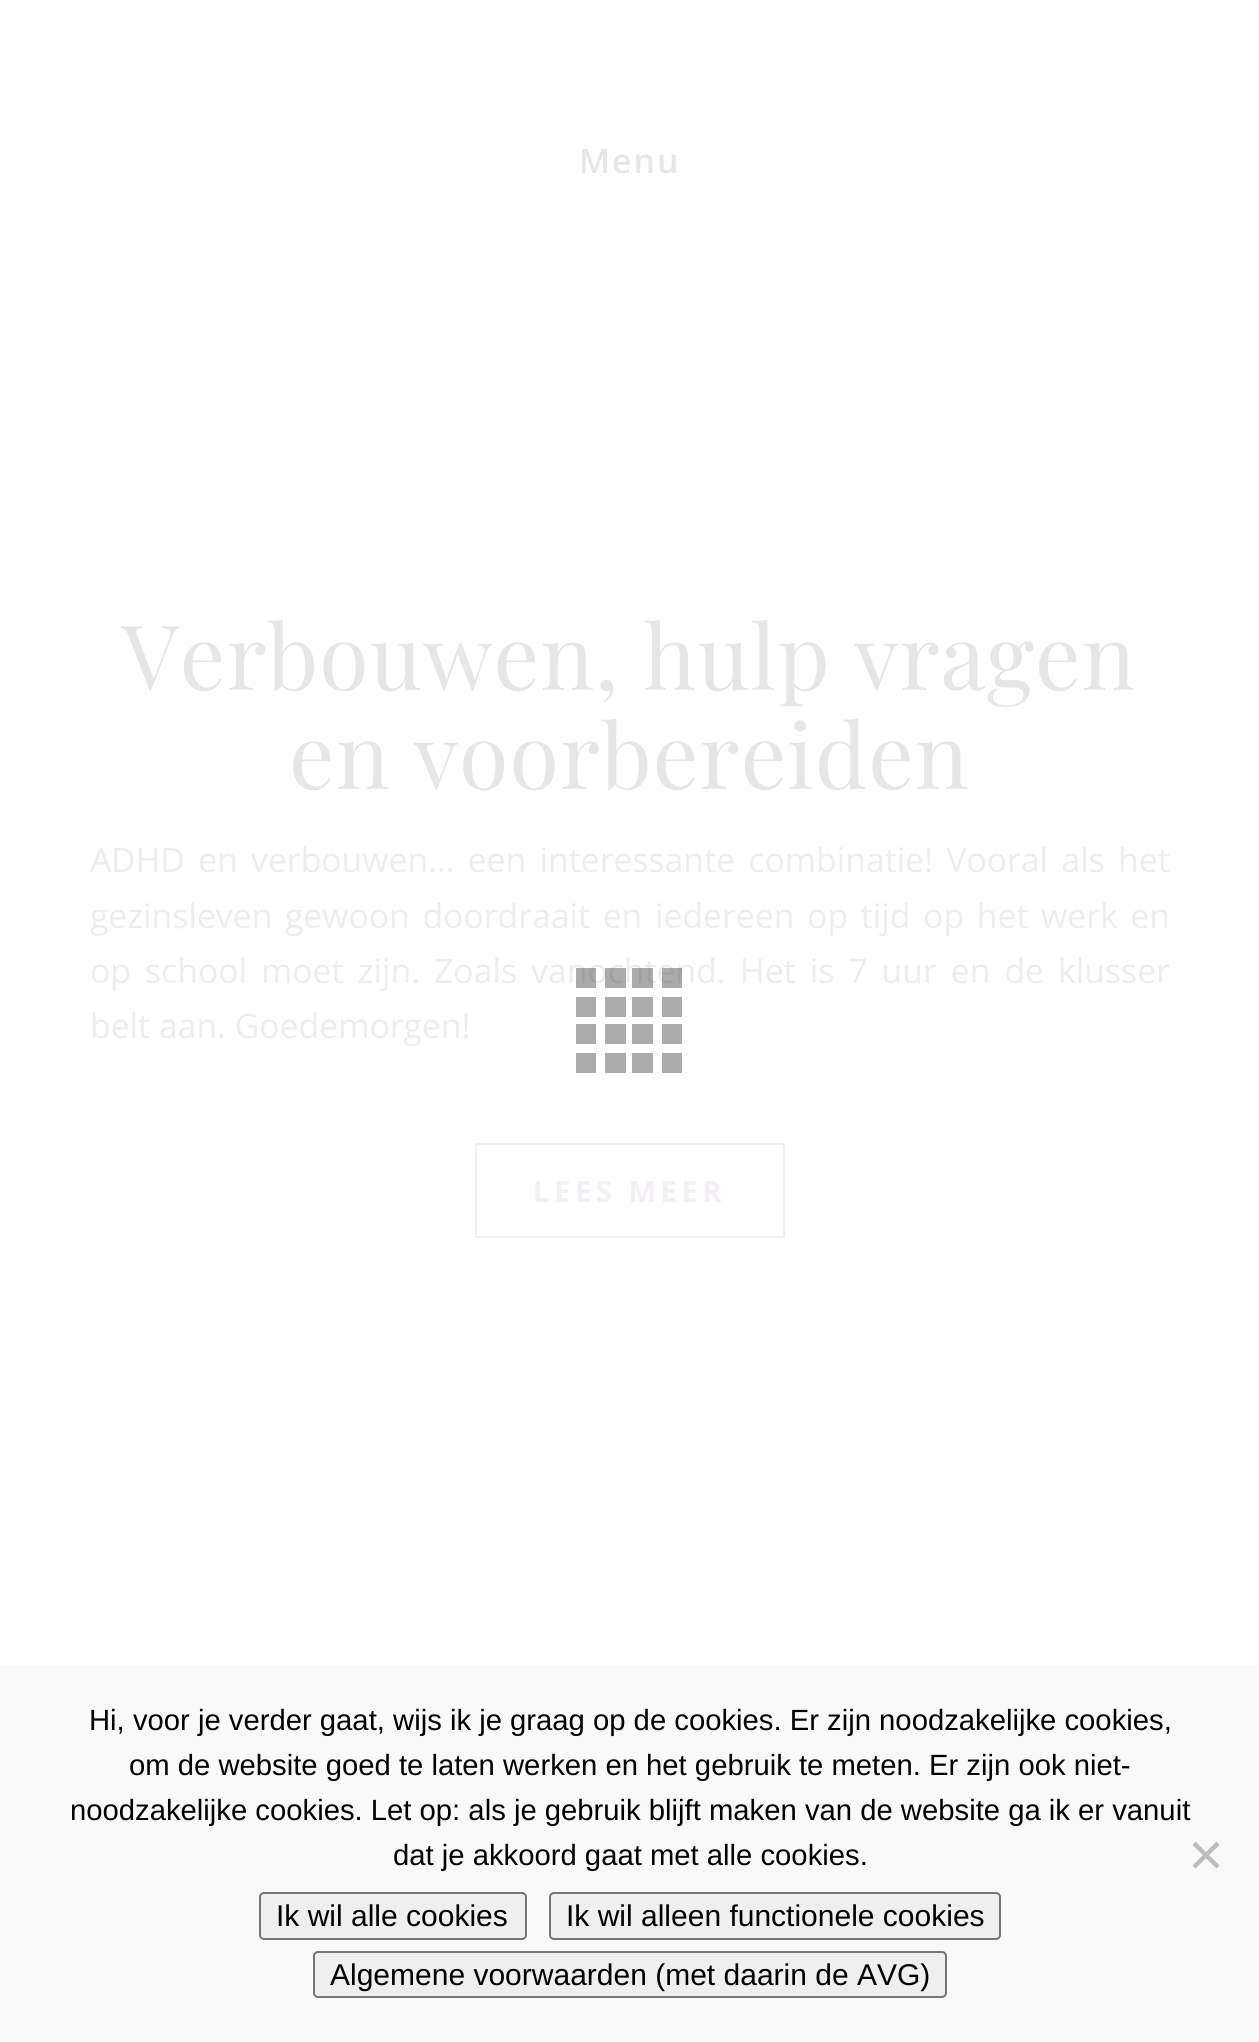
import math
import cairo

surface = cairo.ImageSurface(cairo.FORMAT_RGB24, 1259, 2042)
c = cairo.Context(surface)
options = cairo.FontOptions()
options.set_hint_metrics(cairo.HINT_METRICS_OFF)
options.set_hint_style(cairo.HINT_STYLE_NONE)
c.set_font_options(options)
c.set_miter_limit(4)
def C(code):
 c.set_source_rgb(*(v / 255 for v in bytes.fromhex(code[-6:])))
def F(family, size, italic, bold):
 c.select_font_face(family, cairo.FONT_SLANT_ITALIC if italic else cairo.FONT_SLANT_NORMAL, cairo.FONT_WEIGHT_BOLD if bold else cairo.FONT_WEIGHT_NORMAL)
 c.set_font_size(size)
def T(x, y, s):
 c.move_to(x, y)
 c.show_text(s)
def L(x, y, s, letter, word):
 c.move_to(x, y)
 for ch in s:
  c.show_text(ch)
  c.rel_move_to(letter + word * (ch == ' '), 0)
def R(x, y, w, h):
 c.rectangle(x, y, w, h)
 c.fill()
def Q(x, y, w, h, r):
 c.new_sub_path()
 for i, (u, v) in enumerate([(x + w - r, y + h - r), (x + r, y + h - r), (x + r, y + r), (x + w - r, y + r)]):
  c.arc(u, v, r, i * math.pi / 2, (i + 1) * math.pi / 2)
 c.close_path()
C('ffffff')
c.paint()
F('Open Sans SemiBold',33.75,0,0)
C('e6e6e6')
L(579,173,'Menu',2,0)
F('Playfair Display',90,0,0)
L(122,690,'Verbouwen, hulp vragen',1.1,0)
L(289,789,'en voorbereiden',1.1,0)
F('Noto Sans',33.75,0,0)
C('ededed')
T(90,872,'A')
F('Open Sans',33.75,0,0)
L(111,872,'DHD en verbouwen… een interessante combinatie! Vooral als het',0,4.5)
L(90,928,'gezinsleven gewoon doordraait en iedereen op tijd op het werk en',0,3.9)
L(90,983,'op school moet zijn. Zoals vanochtend. Het is 7 uur en de klusser',0,5.25)
T(90,1038,'belt aan. Goedemorgen!')
c.rectangle(476,1144,308,93)
C('f3eff5')
c.stroke()
F('Open Sans',29.25,0,1)
L(533,1202,'LEES MEER',4.5,0)
c.set_source_rgba(0.2,0.2,0.2,0.41)
R(576,968,20,20)
R(605,968,21,20)
R(632,968,21,20)
R(662,968,20,20)
C('ababab')
R(576,997,20,20)
R(605,997,21,20)
R(632,997,21,20)
R(662,997,20,20)
R(576,1024,20,20)
R(605,1024,21,20)
R(632,1024,21,20)
R(662,1024,20,20)
R(576,1053,20,20)
R(605,1053,21,20)
R(632,1053,21,20)
R(662,1053,20,20)
C('f9f9f9')
R(0,1665,1259,377)
F('Liberation Sans',29.25,0,0)
C('000000')
T(89,1730,'Hi, voor je verder gaat, wijs ik je graag op de cookies. Er zijn noodzakelijke cookies,')
T(129,1775,'om de website goed te laten werken en het gebruik te meten. Er zijn ook niet-')
T(70,1820,'noodzakelijke cookies. Let op: als je gebruik blijft maken van de website ga ik er vanuit')
T(393,1865,'dat je akkoord gaat met alle cookies.')
C('bdbdbd')
c.new_path()
c.move_to(1216.5,1841.5)
c.line_to(1219.5,1845)
c.line_to(1195.5,1868.5)
c.line_to(1192.5,1865.5)
c.close_path()
c.fill()
c.new_path()
c.move_to(1192.5,1845)
c.line_to(1195.5,1841.5)
c.line_to(1219.5,1865.5)
c.line_to(1216.5,1868.5)
c.close_path()
c.fill()
C('efefef')
Q(260,1893,266,46,4)
c.fill_preserve()
C('767676')
c.stroke()
F('Liberation Sans',30,0,0)
C('000000')
T(276,1926,'Ik wil alle cookies')
C('efefef')
Q(550,1893,450,46,4)
c.fill_preserve()
C('767676')
c.stroke()
C('000000')
T(566,1926,'Ik wil alleen functionele cookies')
C('efefef')
Q(314,1952,632,45,4)
c.fill_preserve()
C('767676')
c.stroke()
C('000000')
T(330,1985,'Algemene voorwaarden (met daarin de AVG)')
surface.write_to_png('o.png')
